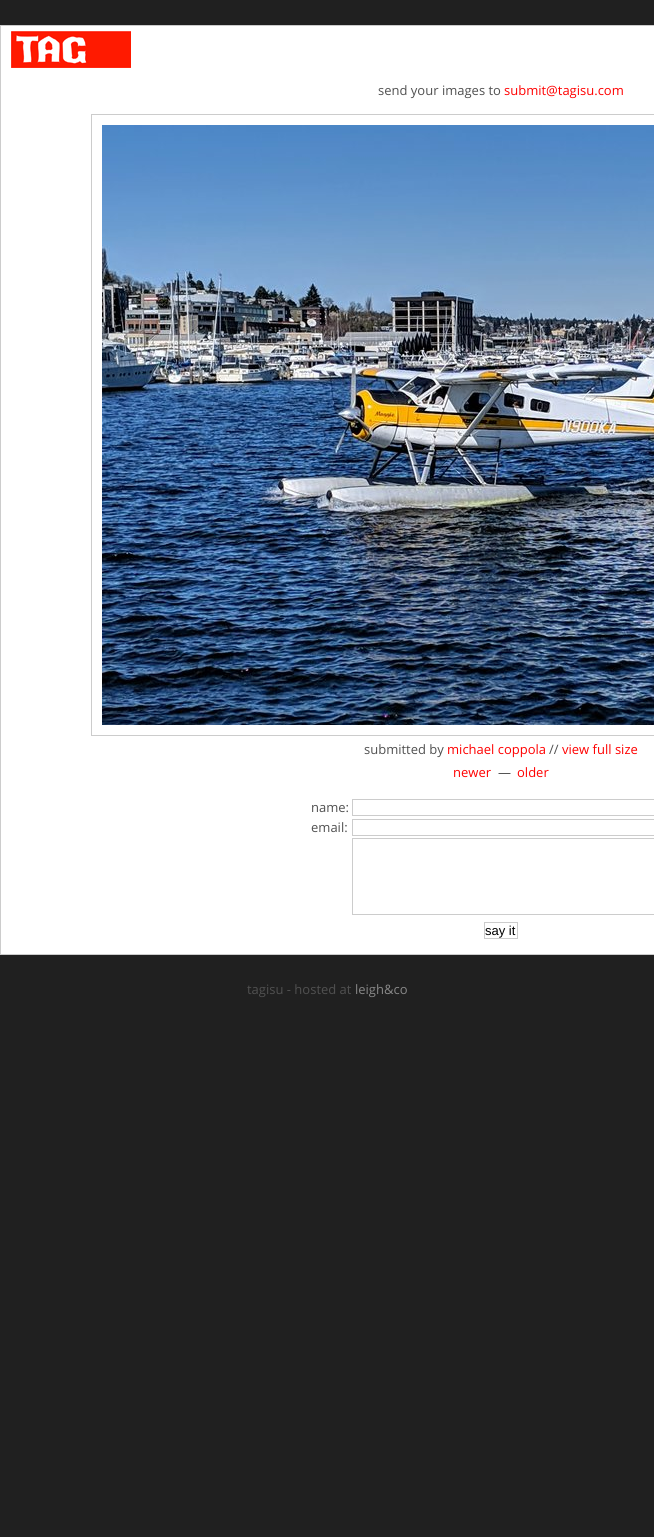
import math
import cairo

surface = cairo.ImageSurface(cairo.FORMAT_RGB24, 654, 1537)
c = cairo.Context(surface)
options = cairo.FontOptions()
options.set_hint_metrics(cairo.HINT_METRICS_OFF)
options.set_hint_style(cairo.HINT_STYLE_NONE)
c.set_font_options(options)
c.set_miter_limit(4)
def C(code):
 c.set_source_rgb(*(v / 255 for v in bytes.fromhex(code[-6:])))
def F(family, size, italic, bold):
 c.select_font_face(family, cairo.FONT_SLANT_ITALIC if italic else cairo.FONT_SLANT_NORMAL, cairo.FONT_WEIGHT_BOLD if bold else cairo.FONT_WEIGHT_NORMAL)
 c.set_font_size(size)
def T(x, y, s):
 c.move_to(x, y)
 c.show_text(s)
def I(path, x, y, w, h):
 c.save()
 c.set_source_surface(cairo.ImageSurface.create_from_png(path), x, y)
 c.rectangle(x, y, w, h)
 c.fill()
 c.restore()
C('202020')
c.paint()
C('ffffff')
c.rectangle(.5,25.5,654,929)
c.fill_preserve()
C('cccccc')
c.set_line_width(1)
c.stroke()
I('1.png',11,31,120,37)
F('Open Sans',13,0,0)
C('505050')
T(378,95,'send your images to')
C('ff0000')
T(504,95,'submit@tagisu.com')
c.rectangle(91.5,114.5,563,621)
C('cccccc')
c.stroke()
I('2.png',102,125,552,600)
C('505050')
T(364,754,'submitted by')
C('ff0000')
T(447,754,'michael coppola')
C('505050')
T(549,754,'//')
C('ff0000')
T(562,754,'view full size')
T(453,777,'newer')
C('505050')
T(498,777,'—')
C('ff0000')
T(517,777,'older')
C('505050')
T(311,812,'name:')
c.rectangle(352.5,799.5,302,16)
C('cccccc')
c.stroke()
C('505050')
T(311,832,'email:')
c.rectangle(352.5,819.5,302,16)
C('cccccc')
c.stroke()
c.rectangle(352.5,838.5,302,76)
c.stroke()
c.rectangle(484.5,922.5,33,16)
c.stroke()
F('Liberation Sans',13,0,0)
C('000000')
T(485,935,'say it')
F('Open Sans',13,0,0)
C('505050')
T(247,994,'tagisu - hosted at')
C('888888')
T(355,994,'leigh&co')
surface.write_to_png('o.png')
